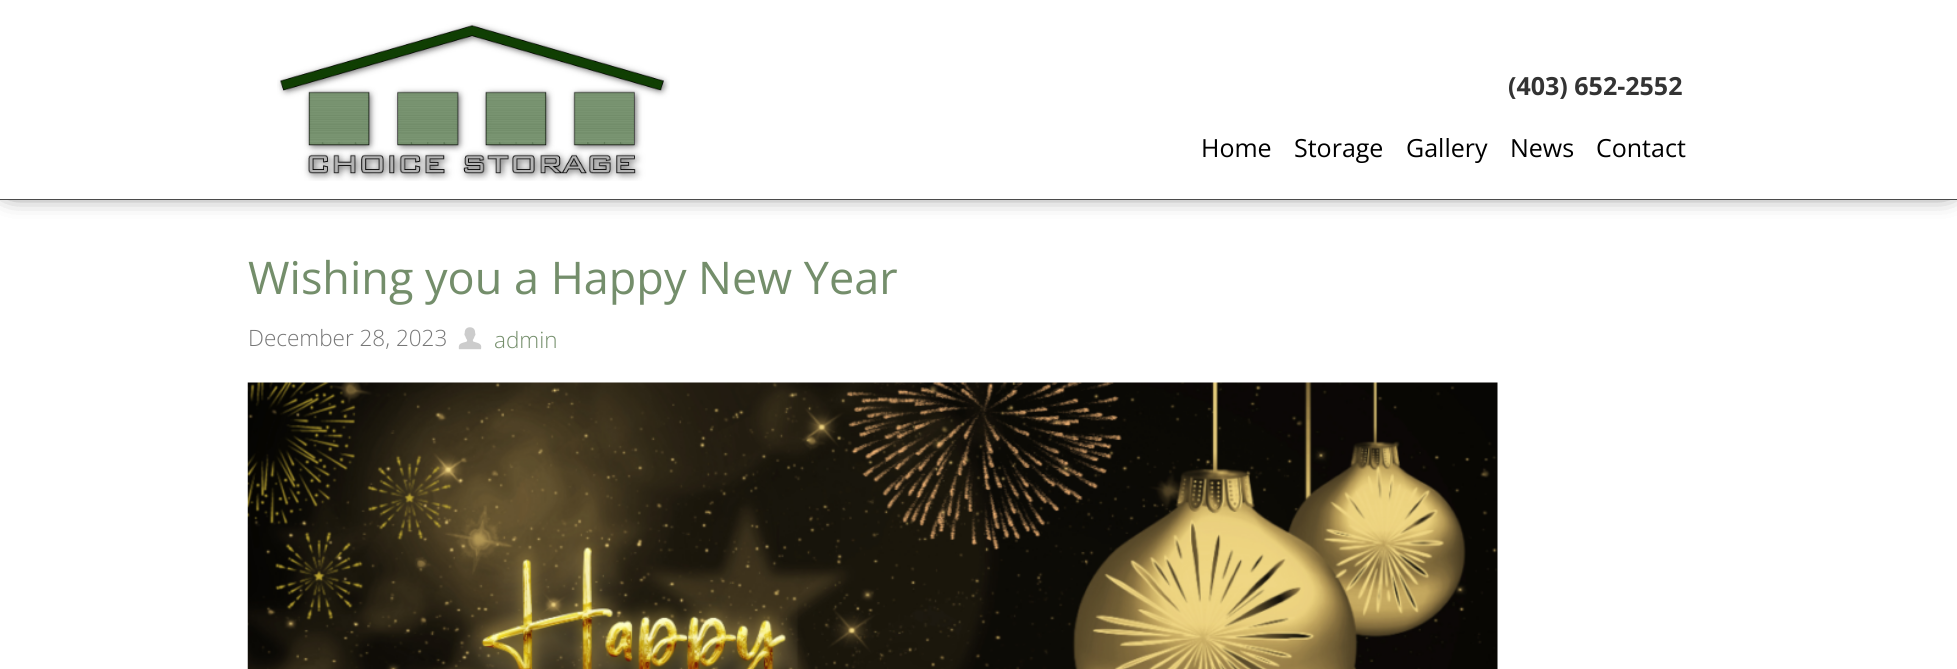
import math
import cairo

surface = cairo.ImageSurface(cairo.FORMAT_RGB24, 1957, 669)
c = cairo.Context(surface)
options = cairo.FontOptions()
options.set_hint_metrics(cairo.HINT_METRICS_OFF)
options.set_hint_style(cairo.HINT_STYLE_NONE)
c.set_font_options(options)
c.set_miter_limit(4)
def C(code):
 c.set_source_rgb(*(v / 255 for v in bytes.fromhex(code[-6:])))
def F(family, size, italic, bold):
 c.select_font_face(family, cairo.FONT_SLANT_ITALIC if italic else cairo.FONT_SLANT_NORMAL, cairo.FONT_WEIGHT_BOLD if bold else cairo.FONT_WEIGHT_NORMAL)
 c.set_font_size(size)
def T(x, y, s):
 c.move_to(x, y)
 c.show_text(s)
def R(x, y, w, h):
 c.rectangle(x, y, w, h)
 c.fill()
def Q(x, y, w, h, r):
 c.new_sub_path()
 for i, (u, v) in enumerate([(x + w - r, y + h - r), (x + r, y + h - r), (x + r, y + r), (x + w - r, y + r)]):
  c.arc(u, v, r, i * math.pi / 2, (i + 1) * math.pi / 2)
 c.close_path()
def S(x, y, w, h, r, blur, alpha):
 c.push_group_with_content(cairo.CONTENT_ALPHA)
 c.set_operator(cairo.OPERATOR_SOURCE)
 for i in range(15, -16, -2):
  e = blur * i / 6
  if min(w, h) + 2 * e > 0:
   c.set_source_rgba(0, 0, 0, alpha * math.erfc((i - 1) / 8.5) / 2)
   Q(x - e, y - e, w + 2 * e, h + 2 * e, max(0, min(r + e + blur * .6, min(w, h) / 2 + e)))
   c.fill()
 c.mask(c.pop_group())
def I(path, x, y, w, h):
 c.save()
 c.set_source_surface(cairo.ImageSurface.create_from_png(path), x, y)
 c.rectangle(x, y, w, h)
 c.fill()
 c.restore()
C('ffffff')
c.paint()
C('000000')
S(0,13,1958,175,13,12.5,.58)
S(0,13,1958,175,13,12.5,.58)
C('ffffff')
R(0,0,1957,199)
C('4b4b4b')
R(0,199,1957,1)
I('1.png',277,22,393,159)
F('Open Sans',25,0,1)
C('333333')
T(1508,95,'(403) 652-2552')
F('Open Sans',25,0,0)
C('000000')
T(1201,157,'Home')
T(1294,157,'Storage')
T(1406,157,'Gallery')
T(1510,157,'News')
T(1596,157,'Contact')
F('Open Sans',45,0,0)
C('748e6b')
T(248,294,'Wishing you a Happy New Year')
F('Open Sans Light',22.5,0,0)
C('777777')
T(248,346,'December 28, 2023')
I('2.png',458,327,24,23)
C('748e6b')
T(494,348,'admin')
I('3.png',247,382,1251,287)
surface.write_to_png('o.png')
